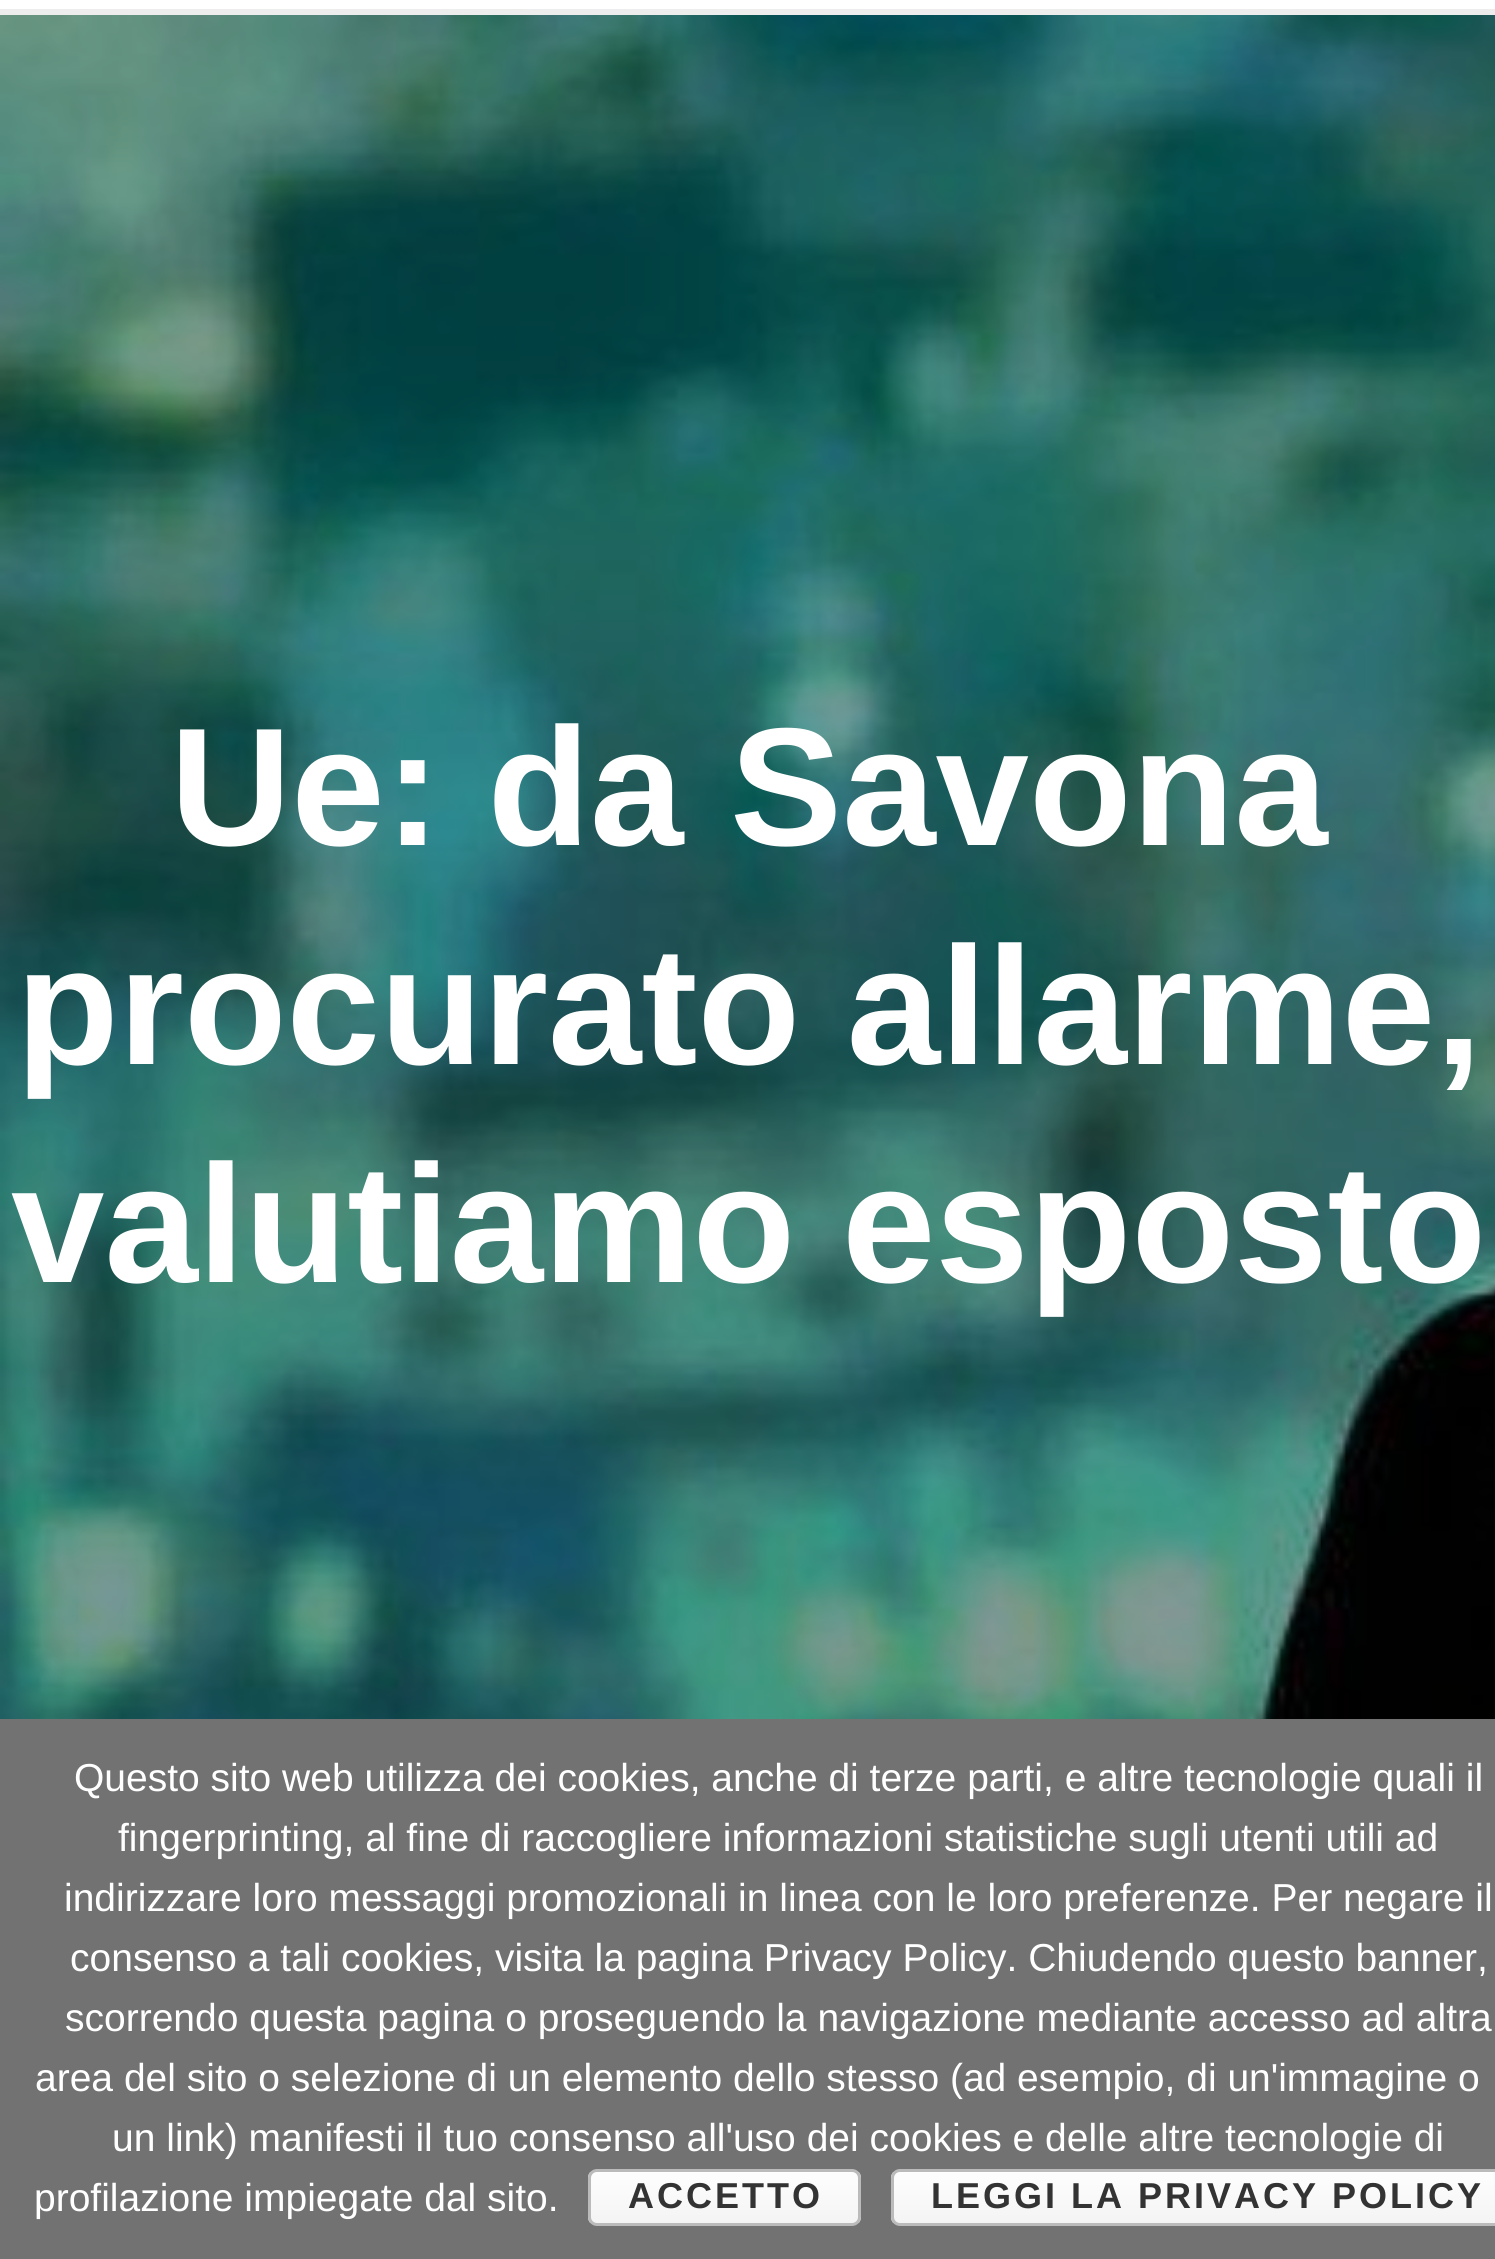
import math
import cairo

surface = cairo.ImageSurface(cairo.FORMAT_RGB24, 1495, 2259)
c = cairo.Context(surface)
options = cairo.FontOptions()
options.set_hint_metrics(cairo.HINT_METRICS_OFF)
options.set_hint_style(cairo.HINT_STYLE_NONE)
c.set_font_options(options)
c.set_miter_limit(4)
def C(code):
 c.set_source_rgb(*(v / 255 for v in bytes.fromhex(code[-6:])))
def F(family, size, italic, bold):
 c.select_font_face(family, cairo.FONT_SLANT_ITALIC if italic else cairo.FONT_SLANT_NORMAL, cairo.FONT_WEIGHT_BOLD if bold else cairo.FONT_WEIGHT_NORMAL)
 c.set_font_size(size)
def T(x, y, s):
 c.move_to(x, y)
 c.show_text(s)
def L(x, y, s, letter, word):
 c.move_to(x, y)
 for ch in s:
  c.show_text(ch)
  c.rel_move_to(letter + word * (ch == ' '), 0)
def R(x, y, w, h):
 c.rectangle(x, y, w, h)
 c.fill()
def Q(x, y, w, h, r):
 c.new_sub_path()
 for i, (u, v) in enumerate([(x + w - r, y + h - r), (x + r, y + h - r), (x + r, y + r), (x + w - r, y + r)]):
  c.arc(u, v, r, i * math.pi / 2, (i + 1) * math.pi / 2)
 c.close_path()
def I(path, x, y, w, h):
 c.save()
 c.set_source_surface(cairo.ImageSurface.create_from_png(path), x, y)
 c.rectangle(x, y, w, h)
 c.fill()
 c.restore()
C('ffffff')
c.paint()
C('ededed')
R(0,9,1495,6)
I('1.png',0,15,1495,1704)
F('Liberation Sans',168,0,1)
C('ffffff')
T(170,845,'Ue: da Savona')
T(16,1064,'procurato allarme,')
T(11,1282,'valutiamo esposto')
C('727272')
R(0,1719,1495,540)
F('Liberation Sans',39,0,0)
C('ffffff')
T(74,1791,'Questo sito web utilizza dei cookies, anche di terze parti, e altre tecnologie quali il')
T(118,1851,'fingerprinting, al fine di raccogliere informazioni statistiche sugli utenti utili ad')
T(64,1911,'indirizzare loro messaggi promozionali in linea con le loro preferenze. Per negare il')
T(70,1971,'consenso a tali cookies, visita la pagina Privacy Policy. Chiudendo questo banner,')
T(65,2031,'scorrendo questa pagina o proseguendo la navigazione mediante accesso ad altra')
T(35,2091,'area del sito o selezione di un elemento dello stesso (ad esempio, di un\'immagine o')
T(112,2151,'un link) manifesti il tuo consenso all\'uso dei cookies e delle altre tecnologie di')
T(34,2211,'profilazione impiegate dal sito.')
c.save()
Q(588,2169,273,57,9)
c.clip()
gradient = cairo.LinearGradient(725,2172,725,2223)
gradient.add_color_stop_rgba(0,0.996,0.996,0.996,1)
gradient.add_color_stop_rgba(1,0.957,0.957,0.957,1)
c.set_source(gradient)
R(588,2172,273,51)
c.restore()
Q(589.5,2170.5,270,54,7.5)
C('bbbbbb')
c.set_line_width(3)
c.stroke()
F('Liberation Sans',36,0,1)
C('333333')
L(628,2208,'ACCETTO',3,0)
c.save()
Q(891,2169,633,57,9)
c.clip()
gradient = cairo.LinearGradient(1208,2172,1208,2223)
gradient.add_color_stop_rgba(0,0.996,0.996,0.996,1)
gradient.add_color_stop_rgba(1,0.957,0.957,0.957,1)
c.set_source(gradient)
R(891,2172,604,51)
c.restore()
Q(892.5,2170.5,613,54,7.5)
C('bbbbbb')
c.stroke()
C('333333')
L(931,2208,'LEGGI LA PRIVACY POLICY',3,0)
surface.write_to_png('o.png')
